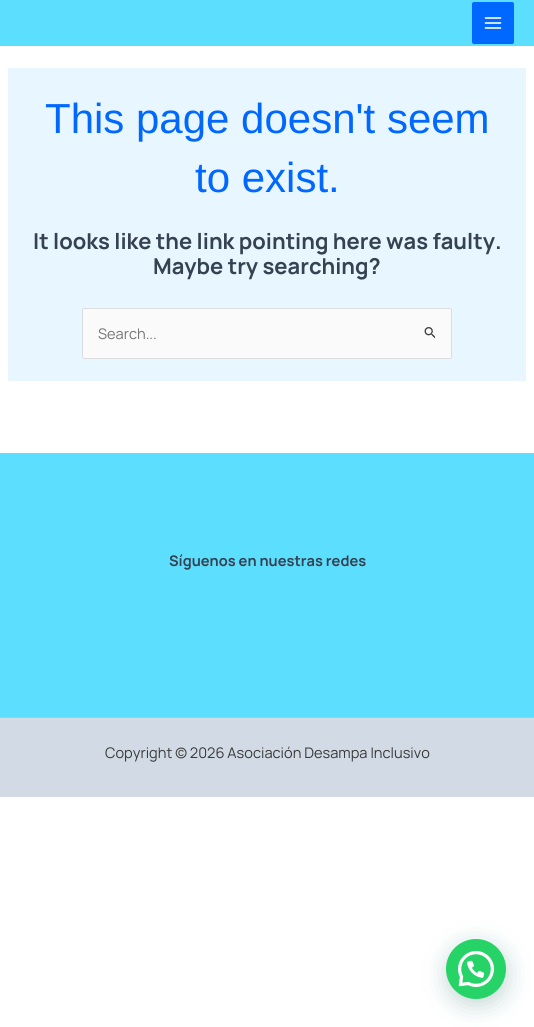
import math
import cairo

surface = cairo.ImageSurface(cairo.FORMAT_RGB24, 534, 1027)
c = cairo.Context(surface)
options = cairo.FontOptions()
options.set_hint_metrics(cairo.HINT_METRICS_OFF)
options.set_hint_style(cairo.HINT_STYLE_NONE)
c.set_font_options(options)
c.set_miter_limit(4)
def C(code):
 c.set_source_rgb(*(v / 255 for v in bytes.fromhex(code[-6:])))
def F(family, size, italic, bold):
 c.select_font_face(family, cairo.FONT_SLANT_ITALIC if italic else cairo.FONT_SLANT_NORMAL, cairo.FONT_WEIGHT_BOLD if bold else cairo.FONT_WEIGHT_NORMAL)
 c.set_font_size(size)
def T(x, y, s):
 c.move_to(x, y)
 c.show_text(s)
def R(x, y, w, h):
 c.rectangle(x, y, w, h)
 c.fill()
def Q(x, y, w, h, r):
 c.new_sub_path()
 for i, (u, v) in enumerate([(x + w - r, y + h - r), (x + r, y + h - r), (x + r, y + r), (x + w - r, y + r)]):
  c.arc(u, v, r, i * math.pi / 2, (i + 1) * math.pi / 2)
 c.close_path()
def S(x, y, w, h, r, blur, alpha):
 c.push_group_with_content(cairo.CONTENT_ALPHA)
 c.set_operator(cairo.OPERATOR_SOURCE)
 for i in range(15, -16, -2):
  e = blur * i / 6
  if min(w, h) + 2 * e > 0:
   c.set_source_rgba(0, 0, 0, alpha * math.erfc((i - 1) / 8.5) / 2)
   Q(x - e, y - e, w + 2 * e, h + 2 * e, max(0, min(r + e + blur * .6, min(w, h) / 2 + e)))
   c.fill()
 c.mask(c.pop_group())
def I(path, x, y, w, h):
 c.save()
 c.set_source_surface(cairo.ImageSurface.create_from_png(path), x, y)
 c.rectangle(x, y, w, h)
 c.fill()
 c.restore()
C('ffffff')
c.paint()
C('5cdfff')
R(0,0,534,46)
C('0067ff')
Q(472,2,42,42,2)
c.fill()
I('1.png',484,17,18,12)
C('e7f6ff')
R(8,68,518,313)
F('Liberation Sans',42,0,0)
C('0067ff')
T(45,133,'This page doesn\'t seem')
T(195,192,'to exist.')
F('Manrope',21.9,0,1)
C('364151')
T(33,249,'It looks like the link pointing here was faulty.')
T(153,274,'Maybe try searching?')
C('fafafa')
Q(82.5,308.5,369,50,1.5)
c.fill_preserve()
C('dddddd')
c.set_line_width(1)
c.stroke()
F('Manrope',14.6,0,0)
C('757575')
T(98,339,'Search...')
I('2.png',424,327,11,12)
C('5cdfff')
R(0,453,534,264)
F('Manrope',14.6,0,1)
C('364151')
T(169,566,'Síguenos en nuestras redes')
C('d1dae5')
R(0,718,534,79)
C('bcc4ce')
R(0,717,534,1)
F('Manrope',14.6,0,0)
C('3a3a3a')
T(105,758,'Copyright © 2026 Asociación Desampa Inclusivo')
C('075e54')
S(447,945,60,60,30,12,.24)
C('25d366')
c.arc(476,969,30,0,2 * math.pi)
c.fill()
I('3.png',458,951,36,36)
surface.write_to_png('o.png')
